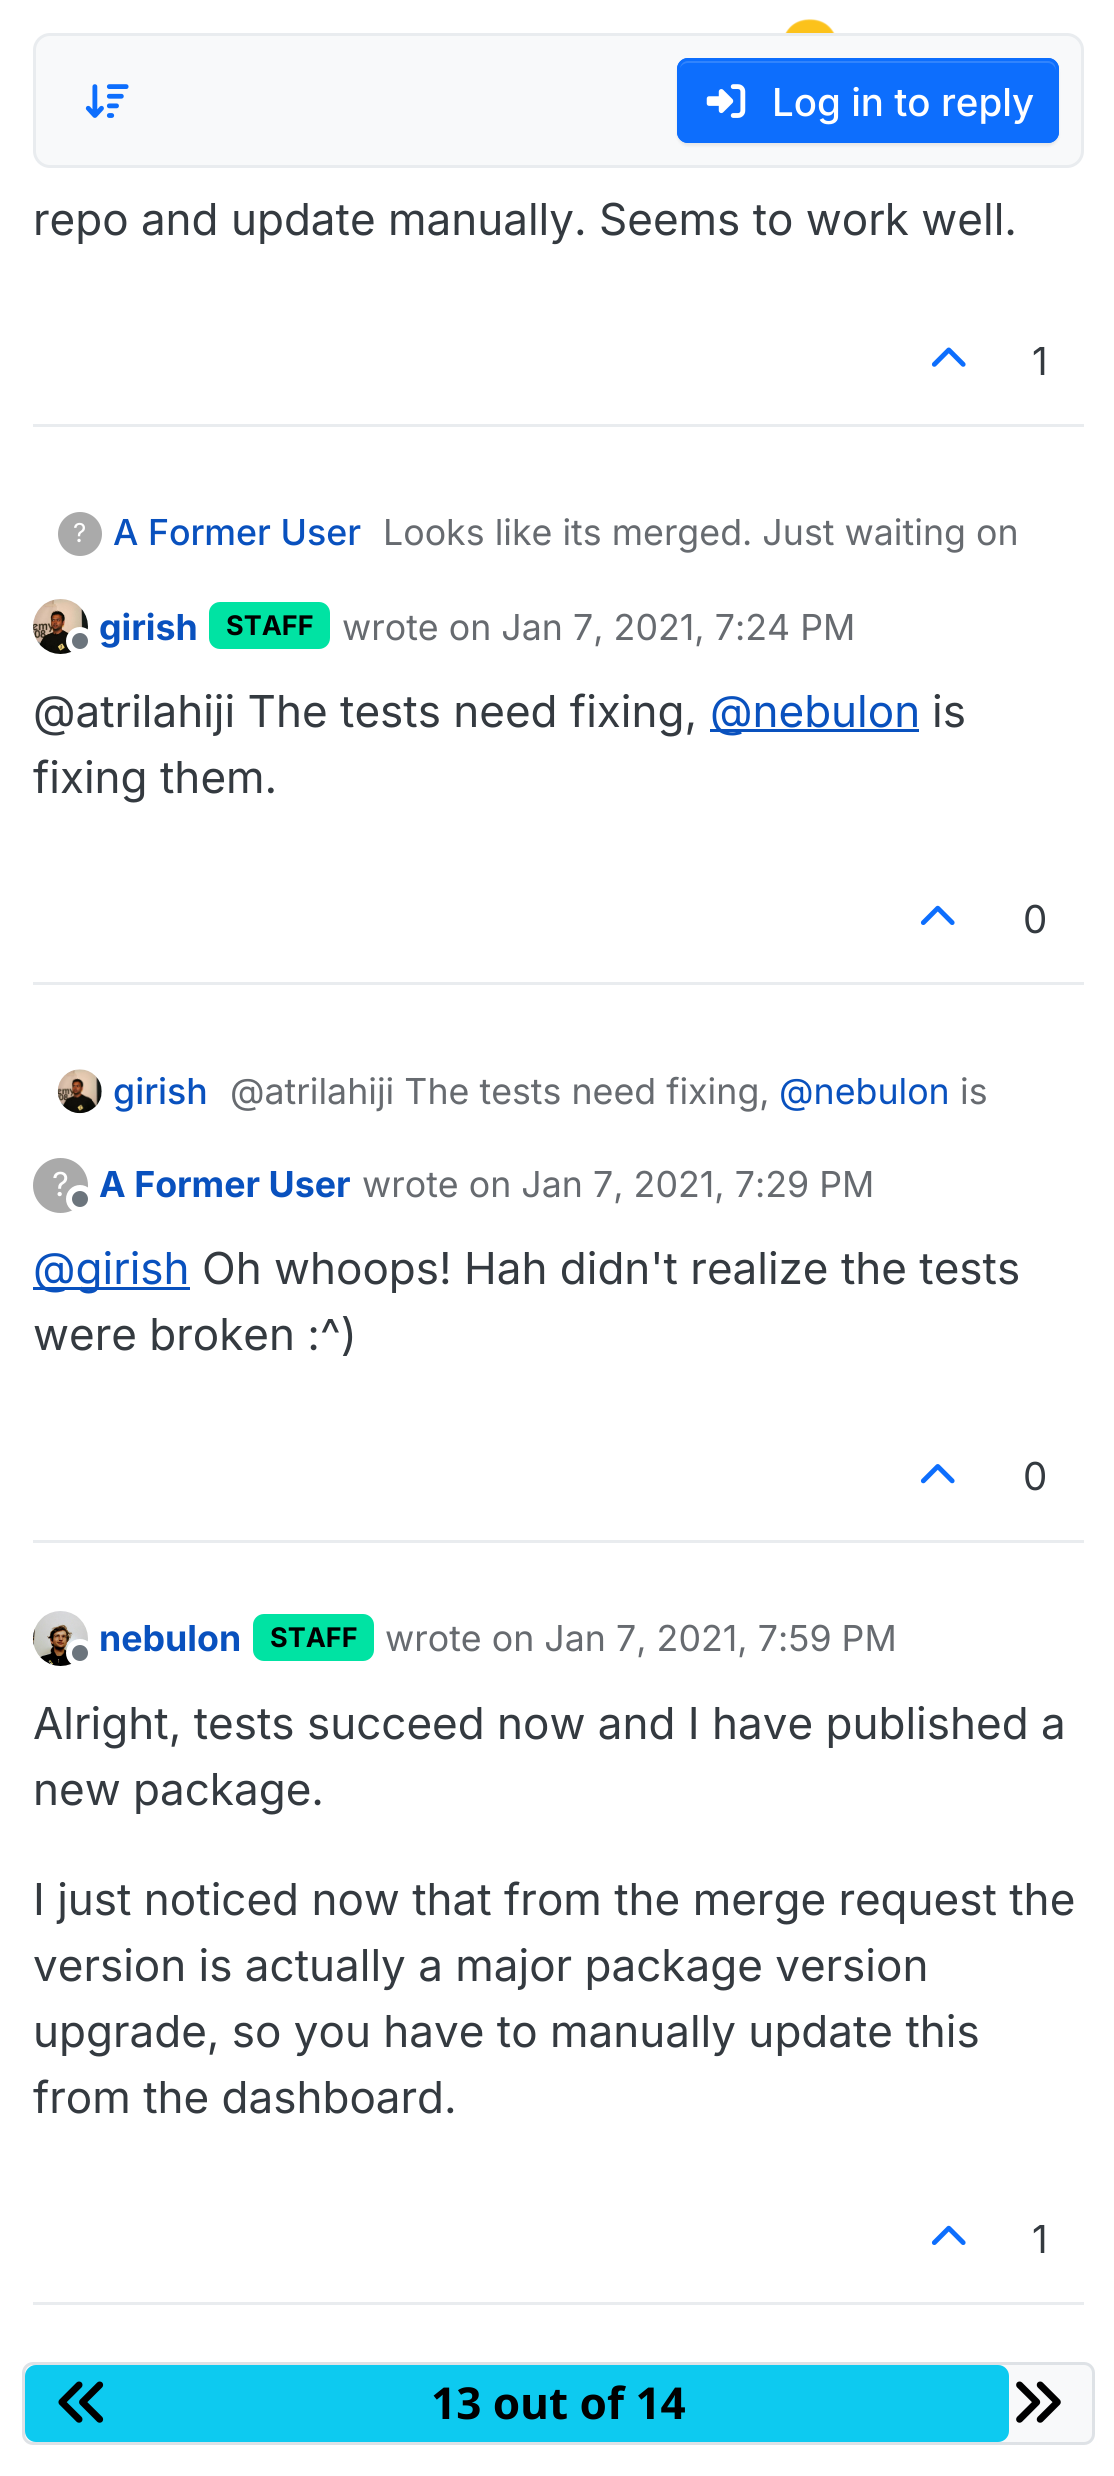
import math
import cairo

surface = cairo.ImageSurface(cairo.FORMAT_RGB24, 1114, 2476)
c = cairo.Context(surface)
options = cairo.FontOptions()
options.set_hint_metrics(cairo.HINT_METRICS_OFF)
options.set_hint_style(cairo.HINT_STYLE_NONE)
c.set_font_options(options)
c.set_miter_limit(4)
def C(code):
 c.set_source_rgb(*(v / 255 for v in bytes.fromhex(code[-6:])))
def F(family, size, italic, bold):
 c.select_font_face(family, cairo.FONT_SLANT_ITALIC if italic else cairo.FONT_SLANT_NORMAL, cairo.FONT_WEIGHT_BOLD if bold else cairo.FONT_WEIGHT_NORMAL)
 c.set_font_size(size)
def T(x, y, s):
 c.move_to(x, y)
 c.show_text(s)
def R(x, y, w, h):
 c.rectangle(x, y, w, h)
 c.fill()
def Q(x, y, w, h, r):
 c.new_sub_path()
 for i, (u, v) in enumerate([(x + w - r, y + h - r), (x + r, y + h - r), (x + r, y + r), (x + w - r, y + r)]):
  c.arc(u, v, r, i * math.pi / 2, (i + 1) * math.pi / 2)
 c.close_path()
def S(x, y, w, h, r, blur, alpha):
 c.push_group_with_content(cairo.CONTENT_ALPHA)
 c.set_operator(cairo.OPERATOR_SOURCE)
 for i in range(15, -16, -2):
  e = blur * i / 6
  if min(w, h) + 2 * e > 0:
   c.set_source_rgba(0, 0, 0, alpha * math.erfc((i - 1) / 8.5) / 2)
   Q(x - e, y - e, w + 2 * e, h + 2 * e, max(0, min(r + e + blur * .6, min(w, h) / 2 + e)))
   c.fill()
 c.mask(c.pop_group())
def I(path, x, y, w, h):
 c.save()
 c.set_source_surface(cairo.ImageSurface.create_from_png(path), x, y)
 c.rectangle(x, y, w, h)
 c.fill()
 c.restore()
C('ffffff')
c.paint()
C('f8f9fa')
Q(34.5,34.5,1048,132,15.5)
c.fill_preserve()
C('e9ecef')
c.set_line_width(3)
c.stroke()
I('1.png',85,84,44,34)
C('000000')
S(677,61,382,85,11,1.5,.07)
C('0d6efd')
Q(677,58,382,85,11)
c.fill()
C('3184fd')
c.new_path()
c.move_to(688,63)
c.line_to(1048,63)
c.curve_to(1052,63,1056,67,1056,72)
c.curve_to(1056,67,1055,62,1050,61)
c.line_to(685,61)
c.curve_to(680,62,679,67,679,72)
c.curve_to(679,67,683,63,688,63)
c.close_path()
c.fill()
Q(678.5,59.5,379,82,9.5)
C('0d6efd')
c.stroke()
I('2.png',706,84,40,34)
F('Inter Medium',38.5,0,0)
C('ffffff')
T(772,116,'Log in to reply')
I('3.png',785,19,50,14)
F('Inter',44,0,0)
C('343a40')
T(33,235,'repo and update manually. Seems to work well.')
C('e9ecef')
R(33,424,1051,3)
I('4.png',931,347,35,20)
F('Inter',38.5,0,0)
C('343a40')
T(1032,375,'1')
C('aaaaaa')
c.new_path()
c.arc(80,534,22,0,2 * math.pi)
c.fill()
F('Inter',26,0,0)
C('ffffff')
T(73,542,'?')
F('Inter Medium',35.75,0,0)
C('0951be')
T(113,545,'A Former User')
F('Inter',35.75,0,0)
C('676b70')
T(383,545,'Looks like its merged. Just waiting on')
I('5.png',33,599,55,55)
C('6c757d')
c.arc(80,641,11,0,2 * math.pi)
c.fill_preserve()
C('ffffff')
c.set_line_width(6)
c.stroke()
F('Inter',35.75,0,1)
C('0951be')
T(99,640,'girish')
C('00e3a3')
Q(209,602,121,47,11)
c.fill()
F('Inter',27,0,1)
C('000000')
T(226,635,'STAFF')
F('Inter',35.75,0,0)
C('676b70')
T(342,640,'wrote on Jan 7, 2021, 7:24 PM')
F('Inter',44,0,0)
C('343a40')
T(33,727,'@atrilahiji The tests need fixing,')
C('0951be')
R(710,729,209,3)
T(710,727,'@nebulon')
C('343a40')
T(932,727,'is')
T(33,793,'fixing them.')
C('e9ecef')
R(33,982,1051,3)
I('6.png',920,905,35,20)
F('Inter',38.5,0,0)
C('343a40')
T(1023,933,'0')
I('7.png',57,1069,45,45)
F('Inter Medium',35.75,0,0)
C('0951be')
T(113,1104,'girish')
F('Inter',35.75,0,0)
C('676b70')
T(230,1104,'@atrilahiji The tests need fixing,')
C('0951be')
T(779,1104,'@nebulon')
C('676b70')
T(960,1104,'is')
C('aaaaaa')
c.new_path()
c.arc(60.5,1185.5,27.5,0,2 * math.pi)
c.fill()
F('Inter',33,0,0)
C('ffffff')
T(52,1196,'?')
C('6c757d')
c.new_path()
c.arc(80,1199,11,0,2 * math.pi)
c.fill_preserve()
C('ffffff')
c.stroke()
F('Inter',35.75,0,1)
C('0951be')
T(99,1197,'A Former User')
F('Inter',35.75,0,0)
C('676b70')
T(362,1197,'wrote on Jan 7, 2021, 7:29 PM')
C('0951be')
R(33,1287,157,3)
F('Inter',44,0,0)
T(33,1284,'@girish')
C('343a40')
T(202,1284,'Oh whoops! Hah didn\'t realize the tests')
T(33,1350,'were broken :^)')
C('e9ecef')
R(33,1540,1051,3)
I('8.png',920,1464,35,20)
F('Inter',38.5,0,0)
C('343a40')
T(1023,1490,'0')
I('9.png',33,1611,55,55)
C('6c757d')
c.arc(80,1653,11,0,2 * math.pi)
c.fill_preserve()
C('ffffff')
c.stroke()
F('Inter',35.75,0,1)
C('0951be')
T(99,1651,'nebulon')
C('00e3a3')
Q(253,1614,121,47,11)
c.fill()
F('Inter',27,0,1)
C('000000')
T(270,1647,'STAFF')
F('Inter',35.75,0,0)
C('676b70')
T(385,1651,'wrote on Jan 7, 2021, 7:59 PM')
F('Inter',44,0,0)
C('343a40')
T(33,1739,'Alright, tests succeed now and I have published a')
T(33,1805,'new package.')
T(33,1915,'I just noticed now that from the merge request the')
T(33,1981,'version is actually a major package version')
T(33,2047,'upgrade, so you have to manually update this')
T(33,2113,'from the dashboard.')
C('e9ecef')
R(33,2302,1051,3)
I('6.png',931,2225,35,20)
F('Inter',38.5,0,0)
C('343a40')
T(1032,2253,'1')
C('f8f9fa')
Q(23.5,2363.5,1070,80,9.5)
c.fill_preserve()
C('dee2e6')
c.set_line_width(3)
c.stroke()
C('0dcaf0')
Q(25,2365,984,77,11)
c.fill()
I('10.png',58,2381,46,42)
F('Noto Sans',44,0,1)
C('000000')
T(431,2419,'13 out of 14')
I('11.png',1016,2381,45,42)
surface.write_to_png('o.png')
